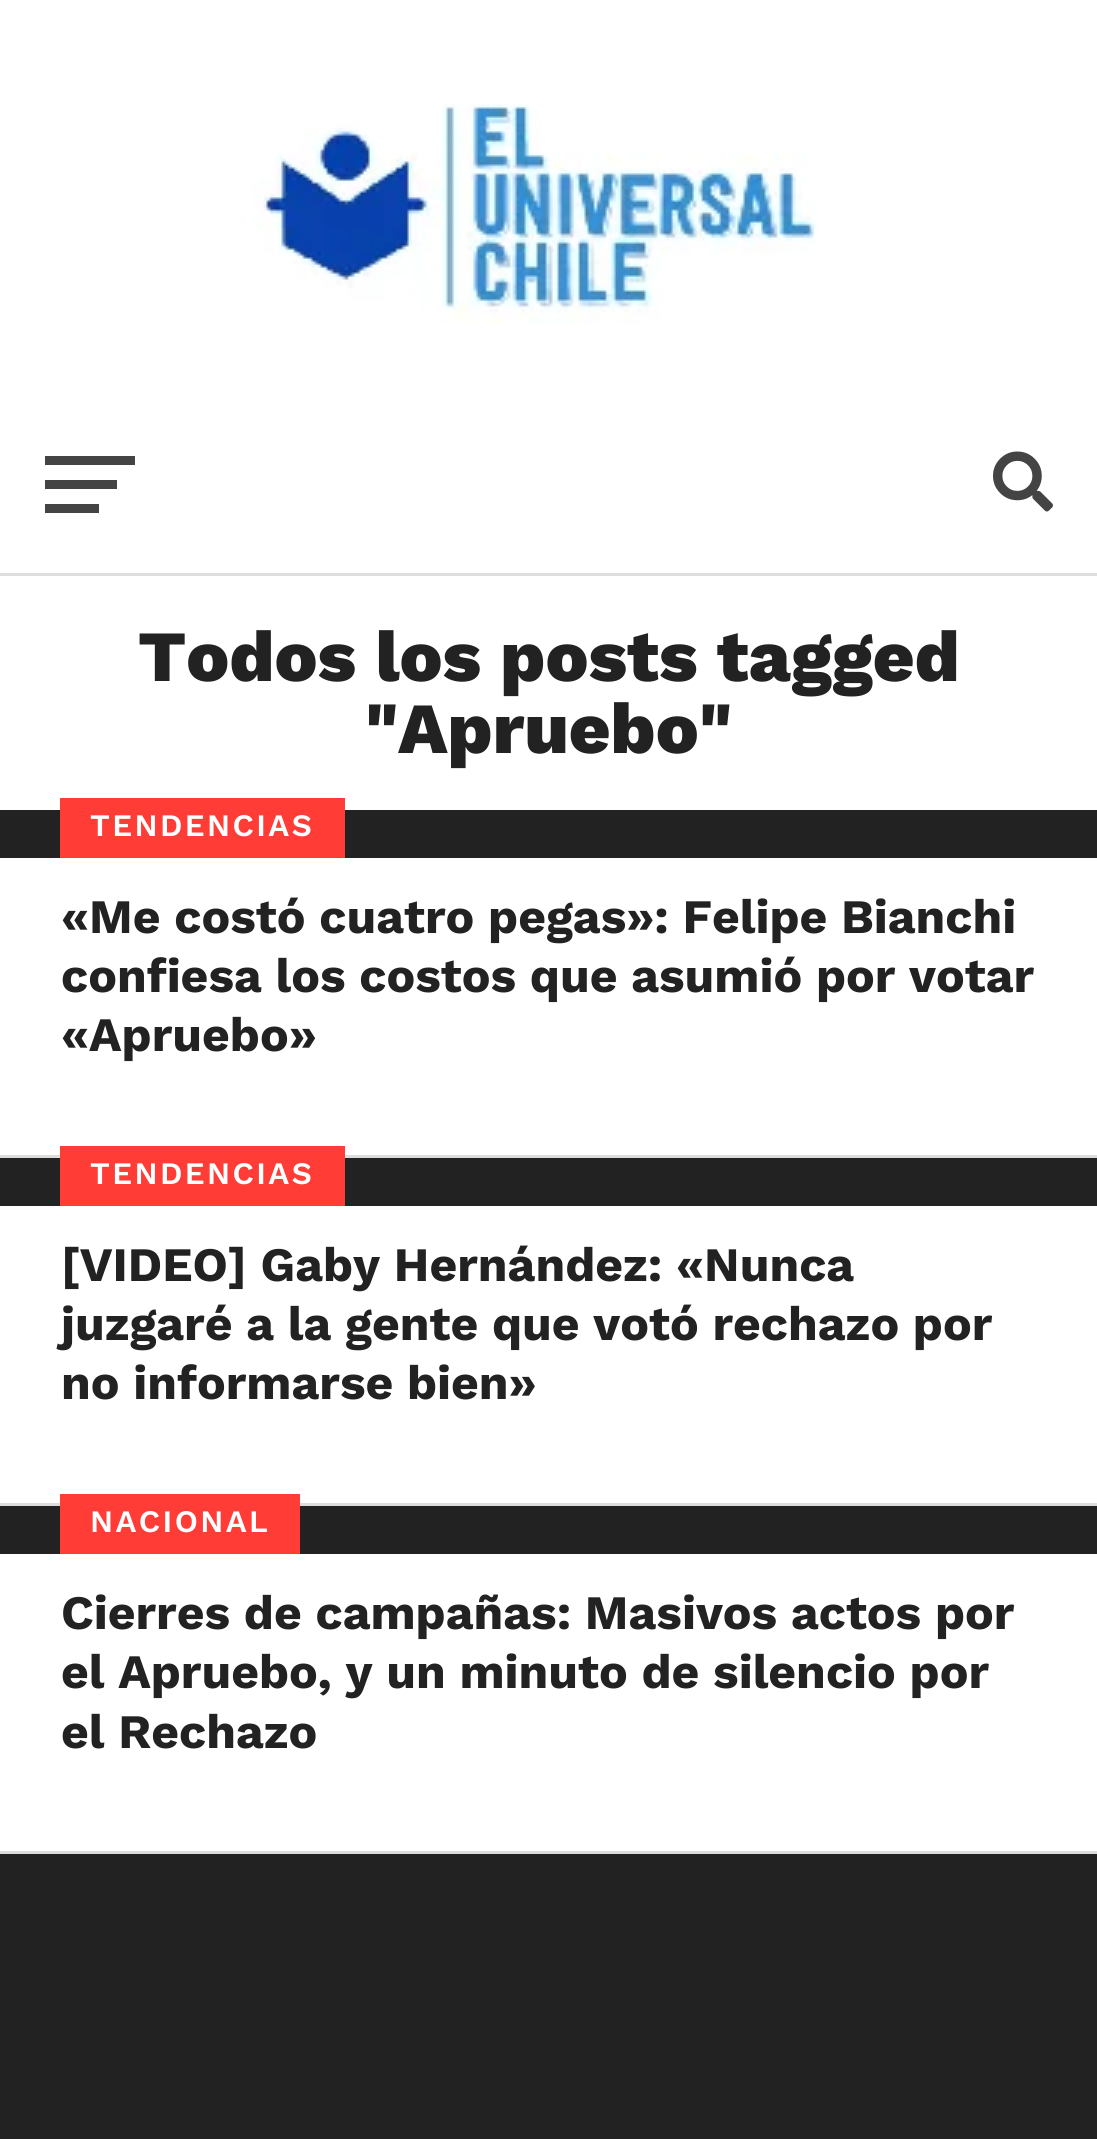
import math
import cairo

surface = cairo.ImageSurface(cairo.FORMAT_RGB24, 1097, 2139)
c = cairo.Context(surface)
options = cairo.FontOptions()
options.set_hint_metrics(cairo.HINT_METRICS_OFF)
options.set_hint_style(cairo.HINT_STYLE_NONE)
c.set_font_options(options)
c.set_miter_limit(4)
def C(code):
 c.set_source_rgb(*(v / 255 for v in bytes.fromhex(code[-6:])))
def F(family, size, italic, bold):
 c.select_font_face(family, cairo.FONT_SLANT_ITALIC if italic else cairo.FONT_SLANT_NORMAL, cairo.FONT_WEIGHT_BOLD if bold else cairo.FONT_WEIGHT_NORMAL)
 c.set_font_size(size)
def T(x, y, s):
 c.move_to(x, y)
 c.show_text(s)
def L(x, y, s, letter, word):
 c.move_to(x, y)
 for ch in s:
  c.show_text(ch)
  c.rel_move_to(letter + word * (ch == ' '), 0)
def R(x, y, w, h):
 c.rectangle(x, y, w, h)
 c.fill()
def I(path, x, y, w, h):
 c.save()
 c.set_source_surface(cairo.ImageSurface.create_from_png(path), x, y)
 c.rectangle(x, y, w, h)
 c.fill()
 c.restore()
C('ffffff')
c.paint()
I('1.png',253,104,564,220)
C('444444')
R(45,456,90,9)
R(45,480,72,9)
R(45,504,54,9)
I('2.png',993,451,60,61)
C('dddddd')
R(0,573,1097,3)
F('Work Sans ExtraBold',72,0,0)
C('222222')
T(138,681,'Todos los posts tagged')
T(365,753,'"Apruebo"')
C('dddddd')
R(0,1155,1097,3)
C('222222')
R(0,810,1097,48)
C('ff3c36')
R(60,798,285,60)
F('Work Sans SemiBold',31.25,0,0)
C('ffffff')
L(90,836,'TENDENCIAS',2.4,0)
F('Work Sans',48,0,1)
C('222222')
T(61,933,'«Me costó cuatro pegas»: Felipe Bianchi')
T(61,992,'confiesa los costos que asumió por votar')
T(61,1051,'«Apruebo»')
C('dddddd')
R(0,1503,1097,3)
C('222222')
R(0,1158,1097,48)
C('ff3c36')
R(60,1146,285,60)
F('Work Sans SemiBold',31.25,0,0)
C('ffffff')
L(90,1184,'TENDENCIAS',2.4,0)
F('Work Sans',48,0,1)
C('222222')
T(61,1281,'[VIDEO] Gaby Hernández: «Nunca')
T(61,1340,'juzgaré a la gente que votó rechazo por')
T(61,1399,'no informarse bien»')
C('dddddd')
R(0,1851,1097,3)
C('222222')
R(0,1506,1097,48)
C('ff3c36')
R(60,1494,240,60)
F('Work Sans SemiBold',31.25,0,0)
C('ffffff')
L(90,1532,'NACIONAL',2.4,0)
F('Work Sans',48,0,1)
C('222222')
T(61,1629,'Cierres de campañas: Masivos actos por')
T(61,1688,'el Apruebo, y un minuto de silencio por')
T(61,1748,'el Rechazo')
R(0,1854,1097,285)
surface.write_to_png('o.png')
